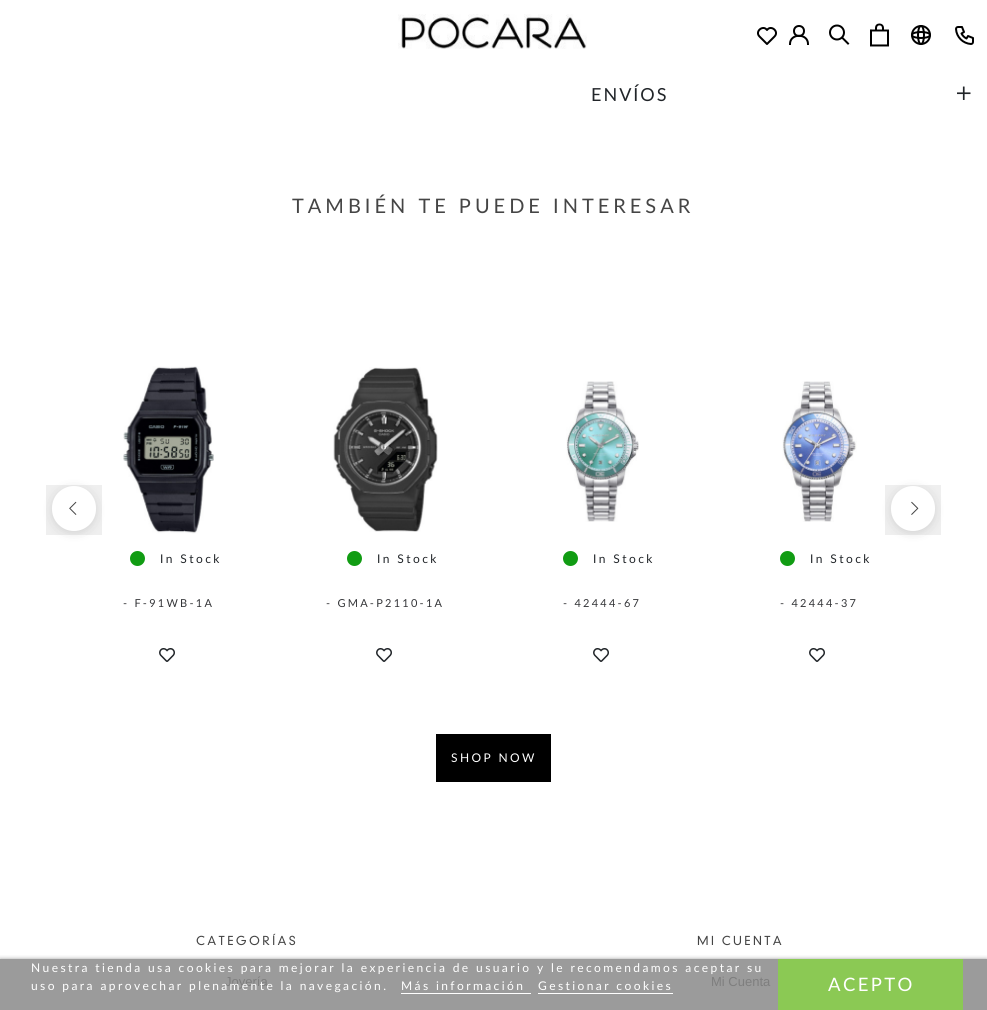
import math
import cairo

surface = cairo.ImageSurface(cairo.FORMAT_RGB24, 987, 1010)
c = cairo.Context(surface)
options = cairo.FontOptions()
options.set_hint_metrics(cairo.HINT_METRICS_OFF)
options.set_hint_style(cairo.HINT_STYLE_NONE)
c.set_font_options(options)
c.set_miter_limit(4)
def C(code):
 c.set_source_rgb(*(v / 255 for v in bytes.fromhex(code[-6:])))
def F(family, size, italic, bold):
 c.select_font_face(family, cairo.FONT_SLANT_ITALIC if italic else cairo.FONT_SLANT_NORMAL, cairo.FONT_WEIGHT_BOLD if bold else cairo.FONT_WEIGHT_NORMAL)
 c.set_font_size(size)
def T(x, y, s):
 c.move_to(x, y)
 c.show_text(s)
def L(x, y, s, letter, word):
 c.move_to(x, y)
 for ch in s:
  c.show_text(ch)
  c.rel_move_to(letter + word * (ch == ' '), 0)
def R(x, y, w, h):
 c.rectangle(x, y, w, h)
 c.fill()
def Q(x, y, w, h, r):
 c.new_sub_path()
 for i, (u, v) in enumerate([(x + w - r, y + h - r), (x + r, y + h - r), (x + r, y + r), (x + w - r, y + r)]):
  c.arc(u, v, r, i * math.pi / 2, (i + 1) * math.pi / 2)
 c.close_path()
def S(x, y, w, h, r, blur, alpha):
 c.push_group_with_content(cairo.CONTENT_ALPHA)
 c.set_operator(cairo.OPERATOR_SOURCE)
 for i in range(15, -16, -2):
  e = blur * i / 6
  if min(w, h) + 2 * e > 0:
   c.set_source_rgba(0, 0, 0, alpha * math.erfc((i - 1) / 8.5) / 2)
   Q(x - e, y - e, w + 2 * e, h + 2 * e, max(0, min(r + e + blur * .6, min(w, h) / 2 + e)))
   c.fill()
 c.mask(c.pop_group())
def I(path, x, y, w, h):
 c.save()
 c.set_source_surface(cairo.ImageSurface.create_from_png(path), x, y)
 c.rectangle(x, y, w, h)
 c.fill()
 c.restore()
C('ffffff')
c.paint()
C('9b9b9b')
R(0,959,987,51)
F('Lato',18,0,0)
C('212529')
L(591,101,'ENVÍOS',2,0)
I('1.png',957,86,14,14)
F('Lato',20,0,0)
C('454545')
L(292,213,'TAMBIÉN TE PUEDE INTERESAR',4,0)
C('efefef')
R(46,485,56,50)
C('363636')
S(52,488,44,45,22,5,.15)
C('ffffff')
Q(52,486,44,45,22)
c.fill()
I('2.png',69,501,8,14)
C('efefef')
R(885,485,56,50)
C('363636')
S(891,488,44,45,22,5,.15)
C('ffffff')
Q(891,486,44,45,22)
c.fill()
I('3.png',911,501,8,14)
I('4.png',123,366,91,168)
C('119c13')
c.arc(137.5,558.5,7.5,0,2 * math.pi)
c.fill()
F('Lato',12,0,0)
C('212529')
L(160,563,'In Stock',2.4,0)
F('Lato',11,0,0)
C('343538')
L(123,607,'- F-91WB-1A',2.25,0)
I('5.png',159,648,16,14)
I('6.png',333,367,105,165)
C('119c13')
c.arc(354.5,558.5,7.5,0,2 * math.pi)
c.fill()
F('Lato',12,0,0)
C('212529')
L(377,563,'In Stock',2.4,0)
F('Lato',11,0,0)
C('343538')
L(326,607,'- GMA-P2110-1A',2.25,0)
I('5.png',376,648,16,14)
I('7.png',566,381,73,141)
C('119c13')
c.arc(570.5,558.5,7.5,0,2 * math.pi)
c.fill()
F('Lato',12,0,0)
C('212529')
L(593,563,'In Stock',2.4,0)
F('Lato',11,0,0)
C('343538')
L(563,607,'- 42444-67',2.25,0)
I('5.png',593,648,16,14)
I('8.png',782,381,75,141)
C('119c13')
c.arc(787.5,558.5,7.5,0,2 * math.pi)
c.fill()
F('Lato',12,0,0)
C('212529')
L(810,563,'In Stock',2.4,0)
F('Lato',11,0,0)
C('343538')
L(780,607,'- 42444-37',2.25,0)
I('5.png',809,648,16,14)
C('000000')
c.rectangle(436.5,734.5,114,47)
c.fill_preserve()
c.set_line_width(1)
c.stroke()
F('Lato',12,0,0)
C('ffffff')
L(451,762,'SHOP NOW',2.4,0)
F('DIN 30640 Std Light',12,0,0)
C('454545')
L(196,945,'CATEGORÍAS',2.4,0)
F('Liberation Sans',13,0,0)
C('7e7e7e')
T(225,986,'Joyería')
F('DIN 30640 Std Light',12,0,0)
C('454545')
L(697,945,'MI CUENTA',2.4,0)
F('Liberation Sans',13,0,0)
C('7e7e7e')
T(711,986,'Mi Cuenta')
c.new_path()
c.move_to(774.5,36.5)
c.line_to(767,44)
c.line_to(759.5,36.5)
c.move_to(759.5,36.5)
c.curve_to(754.5,31.5,763,24.5,767,30)
c.curve_to(771,24.5,779.5,31.5,774.5,36.5)
C('000000')
c.set_line_width(2)
c.set_line_cap(cairo.LINE_CAP_ROUND)
c.set_line_join(cairo.LINE_JOIN_ROUND)
c.stroke()
c.new_path()
c.move_to(790,44)
c.curve_to(790,33,808,33,808,44)
c.set_line_cap(cairo.LINE_CAP_SQUARE)
c.set_line_join(cairo.LINE_JOIN_MITER)
c.stroke()
c.arc(799,31,5,0,2 * math.pi)
c.set_line_cap(cairo.LINE_CAP_BUTT)
c.stroke()
c.new_path()
c.move_to(848,43.5)
c.line_to(842.5,38)
c.set_line_cap(cairo.LINE_CAP_SQUARE)
c.stroke()
c.arc(837,32.5,7,0,2 * math.pi)
c.set_line_cap(cairo.LINE_CAP_BUTT)
c.stroke()
I('9.png',870,23,19,24)
I('10.png',911,25,20,20)
I('11.png',955,26,19,19)
I('12.png',398,14,189,35)
c.save()
c.rectangle(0,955,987,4)
c.clip()
C('707070')
S(0,960,987,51,0,2.5,1)
c.restore()
F('Lato',12,0,0)
C('ffffff')
L(31,972,'Nuestra tienda usa cookies para mejorar la experiencia de usuario y le recomendamos aceptar su',2.4,0)
L(31,990,'uso para aprovechar plenamente la navegación.',2.4,0)
L(401,990,'Más información',2.4,0)
R(401,993,130,1)
L(538,990,'Gestionar cookies',2.4,0)
R(538,993,135,1)
C('8bc954')
R(778,959,185,51)
F('Lato',18.5,0,0)
C('ffffff')
L(828,991,'ACEPTO',2.4,0)
surface.write_to_png('o.png')
